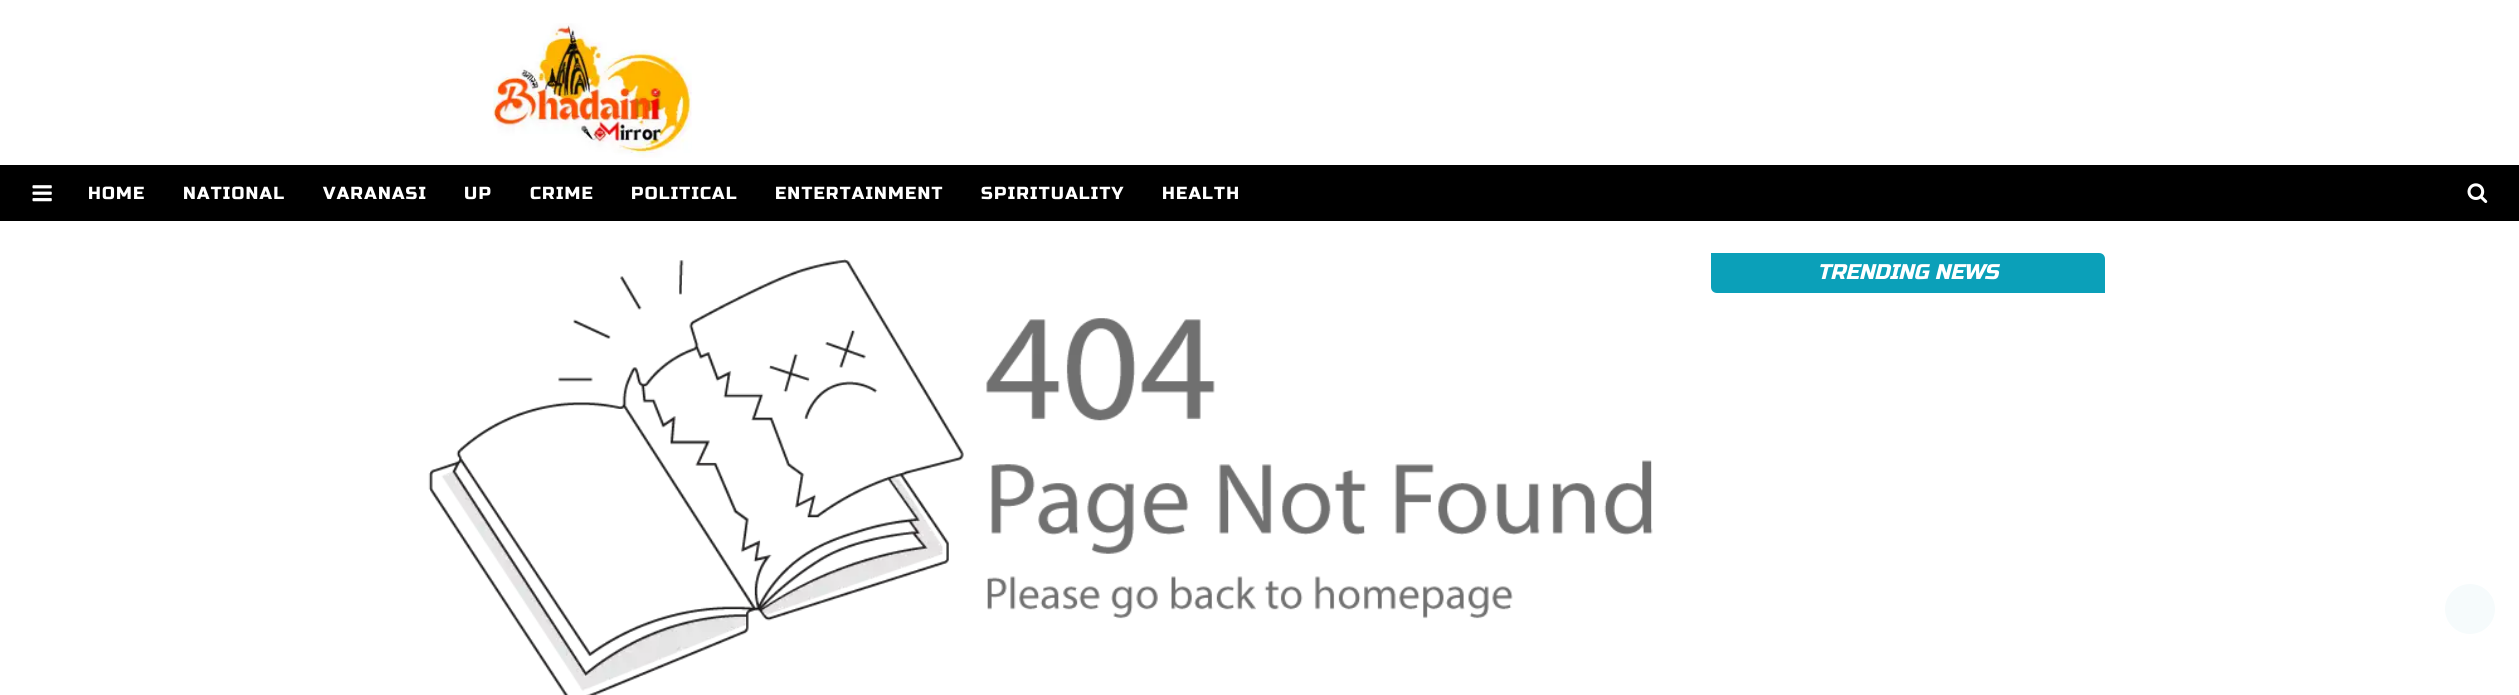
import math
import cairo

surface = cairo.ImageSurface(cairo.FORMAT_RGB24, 2519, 695)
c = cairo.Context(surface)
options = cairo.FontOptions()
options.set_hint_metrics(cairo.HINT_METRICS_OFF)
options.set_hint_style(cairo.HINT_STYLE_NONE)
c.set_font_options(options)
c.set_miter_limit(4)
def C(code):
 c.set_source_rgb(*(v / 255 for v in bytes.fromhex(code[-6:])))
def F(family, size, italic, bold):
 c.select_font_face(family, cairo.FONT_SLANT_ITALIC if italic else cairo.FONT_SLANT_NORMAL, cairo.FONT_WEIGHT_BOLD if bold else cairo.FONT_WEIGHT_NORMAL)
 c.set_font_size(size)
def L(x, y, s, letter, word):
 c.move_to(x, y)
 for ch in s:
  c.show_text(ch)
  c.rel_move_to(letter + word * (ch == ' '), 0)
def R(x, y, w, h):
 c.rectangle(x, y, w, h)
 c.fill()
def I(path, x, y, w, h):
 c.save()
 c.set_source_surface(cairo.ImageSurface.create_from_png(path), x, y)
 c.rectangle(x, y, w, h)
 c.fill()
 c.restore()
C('ffffff')
c.paint()
I('1.png',493,23,199,135)
C('000000')
R(0,165,2519,56)
I('2.png',32,185,20,17)
F('Russo One',17.5,0,0)
C('ffffff')
L(88,199,'HOME',1.25,0)
L(183,199,'NATIONAL',1.25,0)
L(323,199,'VARANASI',1.25,0)
L(464,199,'UP',1.25,0)
L(530,199,'CRIME',1.25,0)
L(631,199,'POLITICAL',1.25,0)
L(775,199,'ENTERTAINMENT',1.25,0)
L(981,199,'SPIRITUALITY',1.25,0)
L(1162,199,'HEALTH',1.25,0)
I('3.png',2467,183,21,20)
I('4.png',428,258,1225,437)
C('0ba0b9')
c.new_path()
c.move_to(1711,253)
c.line_to(2099,253)
c.curve_to(2102.5,253,2105,255.5,2105,259)
c.line_to(2105,293)
c.line_to(1717,293)
c.curve_to(1713.5,293,1711,290.5,1711,287)
c.close_path()
c.fill()
F('Russo One',21.25,1,0)
C('ffffff')
L(1817,279,'TRENDING NEWS',-.1,0)
C('f6fbfc')
c.new_path()
c.arc(2470,609,25,0,2 * math.pi)
c.fill()
surface.write_to_png('o.png')
